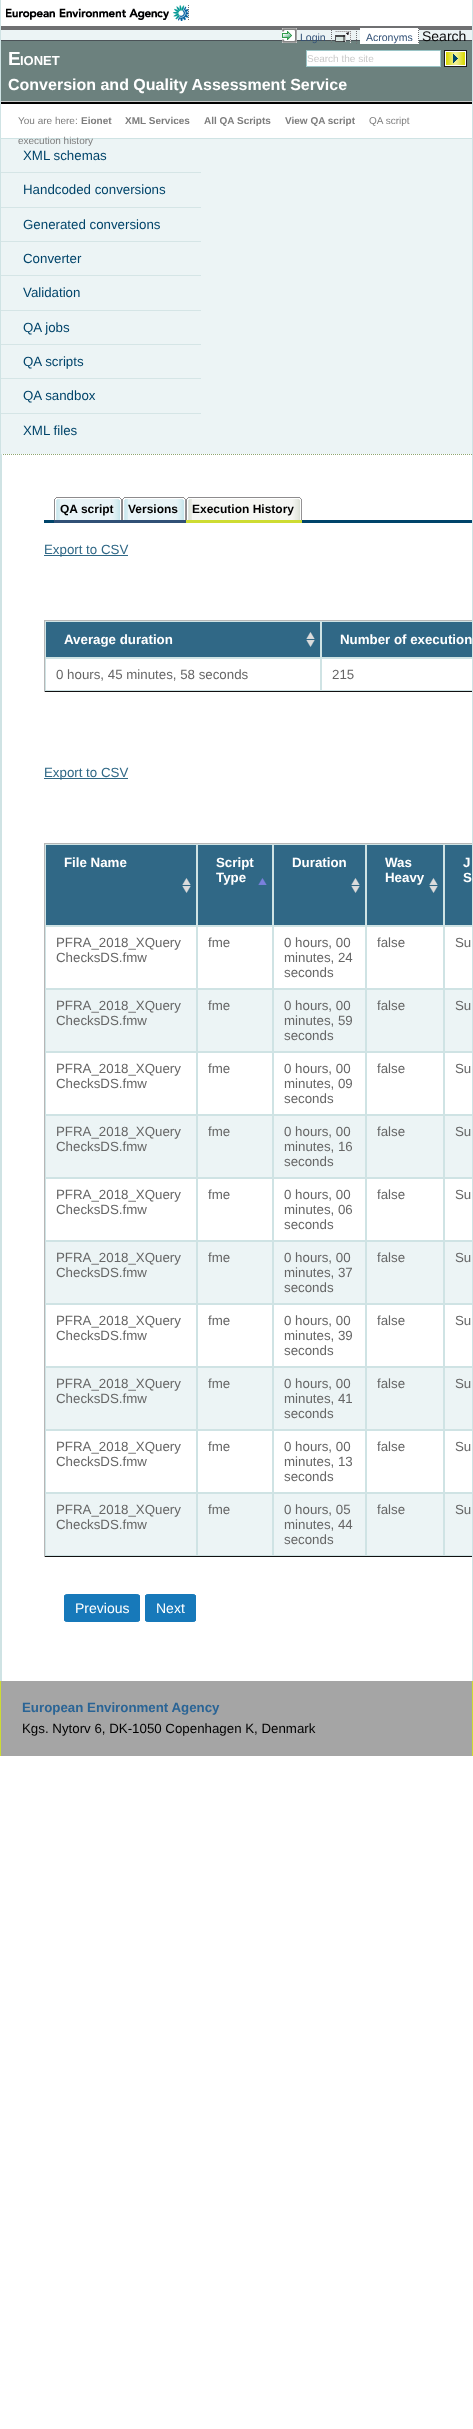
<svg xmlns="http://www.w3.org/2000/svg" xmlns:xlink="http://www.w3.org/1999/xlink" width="473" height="2429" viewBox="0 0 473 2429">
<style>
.cls-1{font:14px Liberation Sans;fill:#0a0a0a}
.cls-2{font:10px Liberation Sans;fill:#cacaca}
.cls-3{font:10.5px Liberation Sans;fill:#315076}
.cls-4{font:bold 19px Liberation Sans;fill:#ffffff}
.cls-5{font:bold 13px Liberation Sans;fill:#ffffff}
.cls-6{font:bold 16px Liberation Sans;fill:#ffffff}
.cls-7{font:10px Liberation Sans;fill:#7d7d7d}
.cls-8{font:bold 10px Liberation Sans;fill:#7d7d7d}
.cls-9{font:13.3px Liberation Sans;fill:#00446a}
.cls-10{font:bold 12px Liberation Sans;fill:#000000}
.cls-11{font:13.3px Liberation Sans;fill:#306886}
.cls-12{font:bold 13.3px Liberation Sans;fill:#ffffff}
.cls-13{font:13.3px Liberation Sans;fill:#666666}
.cls-14{font:14px Liberation Sans;fill:#ffffff}
.cls-15{font:bold 13.3px Liberation Sans;fill:#2a6495}
.cls-16{font:13.3px Liberation Sans;fill:#000000}
</style>
<defs>
<clipPath id="clip1"><rect x="2" y="455" width="470" height="1226"/></clipPath>
</defs>
<rect width="100%" height="100%" fill="#ffffff"/>
<rect fill="#ecf4f5" x="1" y="30" width="471" height="424"/>
<rect fill="#cfe3e4" x="472" y="0" width="1" height="1681"/>
<rect fill="#cfe3e4" x="0" y="0" width="1" height="1681"/>
<rect fill="#6f7072" x="1" y="26" width="471" height="4"/>
<image xlink:href="image0.png" x="6" y="5" width="183" height="16"/>
<path fill="none" stroke="#6f7072" stroke-dasharray="1 1" d="M188.5 5V21"/>
<rect fill="#6c817e" x="1" y="41" width="471" height="60"/>
<rect fill="#4b5257" x="1" y="40" width="471" height="1"/>
<image xlink:href="image1.png" x="282" y="28" width="15" height="15"/>
<image xlink:href="image2.png" x="335" y="31" width="16" height="12"/>
<path fill="none" stroke="#6f7072" stroke-dasharray="1 1" d="M356.5 29V45"/>
<rect fill="#ffffff" stroke="#9ac4c6" x="306.5" y="50.5" width="134" height="16"/>
<image xlink:href="image3.png" x="444" y="50" width="23" height="17"/>
<path fill="none" stroke="#6f7072" stroke-dasharray="1 1" d="M331.5 28V44"/>
<rect fill="#ffffff" x="360" y="28" width="59" height="16"/>
<path fill="none" stroke="#6f7072" stroke-dasharray="1 1" d="M418.5 28V44"/>
<rect fill="#cccccc" x="1" y="101" width="471" height="1"/>
<rect fill="#000000" x="1" y="102" width="471" height="2"/>
<rect fill="#ffffff" x="1" y="104" width="471" height="34"/>
<rect fill="#cfe3e4" x="1" y="138" width="471" height="1"/>
<rect fill="#d5e5e6" x="1" y="172" width="200" height="1"/>
<rect fill="#d5e5e6" x="1" y="207" width="200" height="1"/>
<rect fill="#d5e5e6" x="1" y="241" width="200" height="1"/>
<rect fill="#d5e5e6" x="1" y="275" width="200" height="1"/>
<rect fill="#d5e5e6" x="1" y="310" width="200" height="1"/>
<rect fill="#d5e5e6" x="1" y="344" width="200" height="1"/>
<rect fill="#d5e5e6" x="1" y="378" width="200" height="1"/>
<rect fill="#d5e5e6" x="1" y="413" width="200" height="1"/>
<path fill="none" stroke="#8fa771" stroke-dasharray="1 1" d="M1 454.5H472"/>
<rect fill="#cfe3e4" x="1" y="454" width="1" height="1227"/>
<rect fill="#00446a" x="44" y="520" width="428" height="3"/>
<image xlink:href="image4.png" x="54" y="497" width="6" height="23"/>
<rect fill="#315076" x="54" y="520" width="132" height="3"/>
<image xlink:href="image5.png" x="60" y="497" width="62" height="23"/>
<image xlink:href="image4.png" x="122" y="497" width="6" height="23"/>
<image xlink:href="image6.png" x="128" y="497" width="58" height="23"/>
<image xlink:href="image7.png" x="186" y="497" width="6" height="23"/>
<rect fill="#cedc32" x="186" y="520" width="116" height="3"/>
<image xlink:href="image8.png" x="192" y="497" width="110" height="23"/>
<rect fill="#306886" x="44" y="555" width="84" height="1"/>
<rect fill="#b6b6b6" x="44" y="620" width="428" height="1"/>
<rect fill="#111111" x="44" y="691" width="428" height="1"/>
<rect fill="#b6b6b6" x="44" y="620" width="1" height="72"/>
<image xlink:href="image9.png" x="46" y="622" width="274" height="35"/>
<rect fill="none" stroke="#cfe3e4" x="45.5" y="621.5" width="275" height="36"/>
<rect fill="#306886" x="322" y="622" width="150" height="35"/>
<rect fill="none" stroke="#cfe3e4" x="321.5" y="621.5" width="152" height="36"/>
<rect fill="none" stroke="#cfe3e4" x="45.5" y="658.5" width="275" height="32"/>
<rect fill="none" stroke="#cfe3e4" x="321.5" y="658.5" width="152" height="32"/>
<rect fill="#306886" x="44" y="778" width="84" height="1"/>
<rect fill="#b6b6b6" x="44" y="843" width="428" height="1"/>
<rect fill="#111111" x="44" y="1556" width="428" height="1"/>
<rect fill="#b6b6b6" x="44" y="843" width="1" height="714"/>
<image xlink:href="image10.png" x="46" y="845" width="150" height="80"/>
<rect fill="none" stroke="#cfe3e4" x="45.5" y="844.5" width="151" height="81"/>
<image xlink:href="image11.png" x="198" y="845" width="74" height="80"/>
<rect fill="none" stroke="#cfe3e4" x="197.5" y="844.5" width="75" height="81"/>
<image xlink:href="image12.png" x="274" y="845" width="91" height="80"/>
<rect fill="none" stroke="#cfe3e4" x="273.5" y="844.5" width="92" height="81"/>
<image xlink:href="image13.png" x="367" y="845" width="76" height="80"/>
<rect fill="none" stroke="#cfe3e4" x="366.5" y="844.5" width="77" height="81"/>
<rect fill="#306886" x="445" y="845" width="27" height="80"/>
<rect fill="none" stroke="#cfe3e4" x="444.5" y="844.5" width="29" height="81"/>
<rect fill="none" stroke="#cfe3e4" x="45.5" y="926.5" width="151" height="62"/>
<rect fill="none" stroke="#cfe3e4" x="197.5" y="926.5" width="75" height="62"/>
<rect fill="none" stroke="#cfe3e4" x="273.5" y="926.5" width="92" height="62"/>
<rect fill="none" stroke="#cfe3e4" x="366.5" y="926.5" width="77" height="62"/>
<rect fill="none" stroke="#cfe3e4" x="444.5" y="926.5" width="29" height="62"/>
<rect fill="#ecf4f5" x="46" y="990" width="426" height="61"/>
<rect fill="none" stroke="#cfe3e4" x="45.5" y="989.5" width="151" height="62"/>
<rect fill="none" stroke="#cfe3e4" x="197.5" y="989.5" width="75" height="62"/>
<rect fill="none" stroke="#cfe3e4" x="273.5" y="989.5" width="92" height="62"/>
<rect fill="none" stroke="#cfe3e4" x="366.5" y="989.5" width="77" height="62"/>
<rect fill="none" stroke="#cfe3e4" x="444.5" y="989.5" width="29" height="62"/>
<rect fill="none" stroke="#cfe3e4" x="45.5" y="1052.5" width="151" height="62"/>
<rect fill="none" stroke="#cfe3e4" x="197.5" y="1052.5" width="75" height="62"/>
<rect fill="none" stroke="#cfe3e4" x="273.5" y="1052.5" width="92" height="62"/>
<rect fill="none" stroke="#cfe3e4" x="366.5" y="1052.5" width="77" height="62"/>
<rect fill="none" stroke="#cfe3e4" x="444.5" y="1052.5" width="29" height="62"/>
<rect fill="#ecf4f5" x="46" y="1116" width="426" height="61"/>
<rect fill="none" stroke="#cfe3e4" x="45.5" y="1115.5" width="151" height="62"/>
<rect fill="none" stroke="#cfe3e4" x="197.5" y="1115.5" width="75" height="62"/>
<rect fill="none" stroke="#cfe3e4" x="273.5" y="1115.5" width="92" height="62"/>
<rect fill="none" stroke="#cfe3e4" x="366.5" y="1115.5" width="77" height="62"/>
<rect fill="none" stroke="#cfe3e4" x="444.5" y="1115.5" width="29" height="62"/>
<rect fill="none" stroke="#cfe3e4" x="45.5" y="1178.5" width="151" height="62"/>
<rect fill="none" stroke="#cfe3e4" x="197.5" y="1178.5" width="75" height="62"/>
<rect fill="none" stroke="#cfe3e4" x="273.5" y="1178.5" width="92" height="62"/>
<rect fill="none" stroke="#cfe3e4" x="366.5" y="1178.5" width="77" height="62"/>
<rect fill="none" stroke="#cfe3e4" x="444.5" y="1178.5" width="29" height="62"/>
<rect fill="#ecf4f5" x="46" y="1242" width="426" height="61"/>
<rect fill="none" stroke="#cfe3e4" x="45.5" y="1241.5" width="151" height="62"/>
<rect fill="none" stroke="#cfe3e4" x="197.5" y="1241.5" width="75" height="62"/>
<rect fill="none" stroke="#cfe3e4" x="273.5" y="1241.5" width="92" height="62"/>
<rect fill="none" stroke="#cfe3e4" x="366.5" y="1241.5" width="77" height="62"/>
<rect fill="none" stroke="#cfe3e4" x="444.5" y="1241.5" width="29" height="62"/>
<rect fill="none" stroke="#cfe3e4" x="45.5" y="1304.5" width="151" height="62"/>
<rect fill="none" stroke="#cfe3e4" x="197.5" y="1304.5" width="75" height="62"/>
<rect fill="none" stroke="#cfe3e4" x="273.5" y="1304.5" width="92" height="62"/>
<rect fill="none" stroke="#cfe3e4" x="366.5" y="1304.5" width="77" height="62"/>
<rect fill="none" stroke="#cfe3e4" x="444.5" y="1304.5" width="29" height="62"/>
<rect fill="#ecf4f5" x="46" y="1368" width="426" height="61"/>
<rect fill="none" stroke="#cfe3e4" x="45.5" y="1367.5" width="151" height="62"/>
<rect fill="none" stroke="#cfe3e4" x="197.5" y="1367.5" width="75" height="62"/>
<rect fill="none" stroke="#cfe3e4" x="273.5" y="1367.5" width="92" height="62"/>
<rect fill="none" stroke="#cfe3e4" x="366.5" y="1367.5" width="77" height="62"/>
<rect fill="none" stroke="#cfe3e4" x="444.5" y="1367.5" width="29" height="62"/>
<rect fill="none" stroke="#cfe3e4" x="45.5" y="1430.5" width="151" height="62"/>
<rect fill="none" stroke="#cfe3e4" x="197.5" y="1430.5" width="75" height="62"/>
<rect fill="none" stroke="#cfe3e4" x="273.5" y="1430.5" width="92" height="62"/>
<rect fill="none" stroke="#cfe3e4" x="366.5" y="1430.5" width="77" height="62"/>
<rect fill="none" stroke="#cfe3e4" x="444.5" y="1430.5" width="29" height="62"/>
<rect fill="#ecf4f5" x="46" y="1494" width="426" height="61"/>
<rect fill="none" stroke="#cfe3e4" x="45.5" y="1493.5" width="151" height="62"/>
<rect fill="none" stroke="#cfe3e4" x="197.5" y="1493.5" width="75" height="62"/>
<rect fill="none" stroke="#cfe3e4" x="273.5" y="1493.5" width="92" height="62"/>
<rect fill="none" stroke="#cfe3e4" x="366.5" y="1493.5" width="77" height="62"/>
<rect fill="none" stroke="#cfe3e4" x="444.5" y="1493.5" width="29" height="62"/>
<path fill="#1779ba" d="M69 1594H135C138 1594 140 1595 140 1596V1620C140 1621 138 1622 135 1622H69C66 1622 64 1621 64 1620V1596C64 1595 66 1594 69 1594Z"/>
<path fill="none" stroke="#1779ba" d="M69.5 1594.5H134.5C137.5 1594.5 139.5 1595 139.5 1596V1620C139.5 1621 137.5 1621.5 134.5 1621.5H69.5C66.5 1621.5 64.5 1621 64.5 1620V1596C64.5 1595 66.5 1594.5 69.5 1594.5Z"/>
<path fill="#1779ba" d="M149 1594H192C194 1594 196 1595 196 1596V1620C196 1621 194 1622 192 1622H149C147 1622 145 1621 145 1620V1596C145 1595 147 1594 149 1594Z"/>
<path fill="none" stroke="#1779ba" d="M148.5 1594.5H192.5C194 1594.5 195.5 1595 195.5 1596V1620C195.5 1621 194 1621.5 192.5 1621.5H148.5C147 1621.5 145.5 1621 145.5 1620V1596C145.5 1595 147 1594.5 148.5 1594.5Z"/>
<rect fill="#a5a5a5" x="1" y="1681" width="471" height="75"/>
<rect fill="#cedc32" x="472" y="1681" width="1" height="75"/>
<rect fill="#cedc32" x="0" y="1681" width="1" height="75"/>
<text class="cls-1" x="422" y="41">Search</text>
<text class="cls-2" x="307" y="62">Search the site</text>
<text class="cls-3" x="300" y="41">Login</text>
<text class="cls-3" x="366" y="41">Acronyms</text>
<text class="cls-4" x="8" y="65">E</text>
<text class="cls-5" x="20" y="65">IONET</text>
<text class="cls-6" x="8" y="90">Conversion and Quality Assessment Service</text>
<text class="cls-7" x="18" y="124">You are here:</text>
<text class="cls-8" x="81" y="124">Eionet</text>
<text class="cls-8" x="125" y="124">XML Services</text>
<text class="cls-8" x="204" y="124">All QA Scripts</text>
<text class="cls-8" x="285" y="124">View QA script</text>
<text class="cls-7" x="369" y="124">QA script</text>
<text class="cls-7" x="18" y="144">execution history</text>
<text class="cls-9" x="23" y="160">XML schemas</text>
<text class="cls-9" x="23" y="194">Handcoded conversions</text>
<text class="cls-9" x="23" y="229">Generated conversions</text>
<text class="cls-9" x="23" y="263">Converter</text>
<text class="cls-9" x="23" y="297">Validation</text>
<text class="cls-9" x="23" y="332">QA jobs</text>
<text class="cls-9" x="23" y="366">QA scripts</text>
<text class="cls-9" x="23" y="400">QA sandbox</text>
<text class="cls-9" x="23" y="435">XML files</text>
<text class="cls-10" x="60" y="513">QA script</text>
<text class="cls-10" x="128" y="513">Versions</text>
<text class="cls-10" x="192" y="513">Execution History</text>
<text class="cls-11" x="44" y="554">Export to CSV</text>
<text class="cls-12" x="64" y="644">Average duration</text>
<g clip-path="url(#clip1)">
<text class="cls-12" x="340" y="644">Number of execution</text>
</g>
<text class="cls-13" x="56" y="679">0 hours, 45 minutes, 58 seconds</text>
<text class="cls-13" x="332" y="679">215</text>
<text class="cls-11" x="44" y="777">Export to CSV</text>
<text class="cls-12" x="64" y="867">File Name</text>
<text class="cls-12"><tspan x="216" y="867">Script</tspan><tspan x="216" y="882">Type</tspan></text>
<text class="cls-12" x="292" y="867">Duration</text>
<text class="cls-12"><tspan x="385" y="867">Was</tspan><tspan x="385" y="882">Heavy</tspan></text>
<text class="cls-12"><tspan x="463" y="867">J</tspan><tspan x="463" y="882">S</tspan></text>
<text class="cls-13"><tspan x="56" y="947">PFRA_2018_XQuery</tspan><tspan x="56" y="962">ChecksDS.fmw</tspan></text>
<text class="cls-13" x="208" y="947">fme</text>
<text class="cls-13"><tspan x="284" y="947">0 hours, 00</tspan><tspan x="284" y="962">minutes, 24</tspan><tspan x="284" y="977">seconds</tspan></text>
<text class="cls-13" x="377" y="947">false</text>
<text class="cls-13" x="455" y="947">Su</text>
<text class="cls-13"><tspan x="56" y="1010">PFRA_2018_XQuery</tspan><tspan x="56" y="1025">ChecksDS.fmw</tspan></text>
<text class="cls-13" x="208" y="1010">fme</text>
<text class="cls-13"><tspan x="284" y="1010">0 hours, 00</tspan><tspan x="284" y="1025">minutes, 59</tspan><tspan x="284" y="1040">seconds</tspan></text>
<text class="cls-13" x="377" y="1010">false</text>
<text class="cls-13" x="455" y="1010">Su</text>
<text class="cls-13"><tspan x="56" y="1073">PFRA_2018_XQuery</tspan><tspan x="56" y="1088">ChecksDS.fmw</tspan></text>
<text class="cls-13" x="208" y="1073">fme</text>
<text class="cls-13"><tspan x="284" y="1073">0 hours, 00</tspan><tspan x="284" y="1088">minutes, 09</tspan><tspan x="284" y="1103">seconds</tspan></text>
<text class="cls-13" x="377" y="1073">false</text>
<text class="cls-13" x="455" y="1073">Su</text>
<text class="cls-13"><tspan x="56" y="1136">PFRA_2018_XQuery</tspan><tspan x="56" y="1151">ChecksDS.fmw</tspan></text>
<text class="cls-13" x="208" y="1136">fme</text>
<text class="cls-13"><tspan x="284" y="1136">0 hours, 00</tspan><tspan x="284" y="1151">minutes, 16</tspan><tspan x="284" y="1166">seconds</tspan></text>
<text class="cls-13" x="377" y="1136">false</text>
<text class="cls-13" x="455" y="1136">Su</text>
<text class="cls-13"><tspan x="56" y="1199">PFRA_2018_XQuery</tspan><tspan x="56" y="1214">ChecksDS.fmw</tspan></text>
<text class="cls-13" x="208" y="1199">fme</text>
<text class="cls-13"><tspan x="284" y="1199">0 hours, 00</tspan><tspan x="284" y="1214">minutes, 06</tspan><tspan x="284" y="1229">seconds</tspan></text>
<text class="cls-13" x="377" y="1199">false</text>
<text class="cls-13" x="455" y="1199">Su</text>
<text class="cls-13"><tspan x="56" y="1262">PFRA_2018_XQuery</tspan><tspan x="56" y="1277">ChecksDS.fmw</tspan></text>
<text class="cls-13" x="208" y="1262">fme</text>
<text class="cls-13"><tspan x="284" y="1262">0 hours, 00</tspan><tspan x="284" y="1277">minutes, 37</tspan><tspan x="284" y="1292">seconds</tspan></text>
<text class="cls-13" x="377" y="1262">false</text>
<text class="cls-13" x="455" y="1262">Su</text>
<text class="cls-13"><tspan x="56" y="1325">PFRA_2018_XQuery</tspan><tspan x="56" y="1340">ChecksDS.fmw</tspan></text>
<text class="cls-13" x="208" y="1325">fme</text>
<text class="cls-13"><tspan x="284" y="1325">0 hours, 00</tspan><tspan x="284" y="1340">minutes, 39</tspan><tspan x="284" y="1355">seconds</tspan></text>
<text class="cls-13" x="377" y="1325">false</text>
<text class="cls-13" x="455" y="1325">Su</text>
<text class="cls-13"><tspan x="56" y="1388">PFRA_2018_XQuery</tspan><tspan x="56" y="1403">ChecksDS.fmw</tspan></text>
<text class="cls-13" x="208" y="1388">fme</text>
<text class="cls-13"><tspan x="284" y="1388">0 hours, 00</tspan><tspan x="284" y="1403">minutes, 41</tspan><tspan x="284" y="1418">seconds</tspan></text>
<text class="cls-13" x="377" y="1388">false</text>
<text class="cls-13" x="455" y="1388">Su</text>
<text class="cls-13"><tspan x="56" y="1451">PFRA_2018_XQuery</tspan><tspan x="56" y="1466">ChecksDS.fmw</tspan></text>
<text class="cls-13" x="208" y="1451">fme</text>
<text class="cls-13"><tspan x="284" y="1451">0 hours, 00</tspan><tspan x="284" y="1466">minutes, 13</tspan><tspan x="284" y="1481">seconds</tspan></text>
<text class="cls-13" x="377" y="1451">false</text>
<text class="cls-13" x="455" y="1451">Su</text>
<text class="cls-13"><tspan x="56" y="1514">PFRA_2018_XQuery</tspan><tspan x="56" y="1529">ChecksDS.fmw</tspan></text>
<text class="cls-13" x="208" y="1514">fme</text>
<text class="cls-13"><tspan x="284" y="1514">0 hours, 05</tspan><tspan x="284" y="1529">minutes, 44</tspan><tspan x="284" y="1544">seconds</tspan></text>
<text class="cls-13" x="377" y="1514">false</text>
<text class="cls-13" x="455" y="1514">Su</text>
<text class="cls-14" x="75" y="1613">Previous</text>
<text class="cls-14" x="156" y="1613">Next</text>
<text class="cls-15" x="22" y="1712">European Environment Agency</text>
<text class="cls-16" x="22" y="1733">Kgs. Nytorv 6, DK-1050 Copenhagen K, Denmark</text>
</svg>
